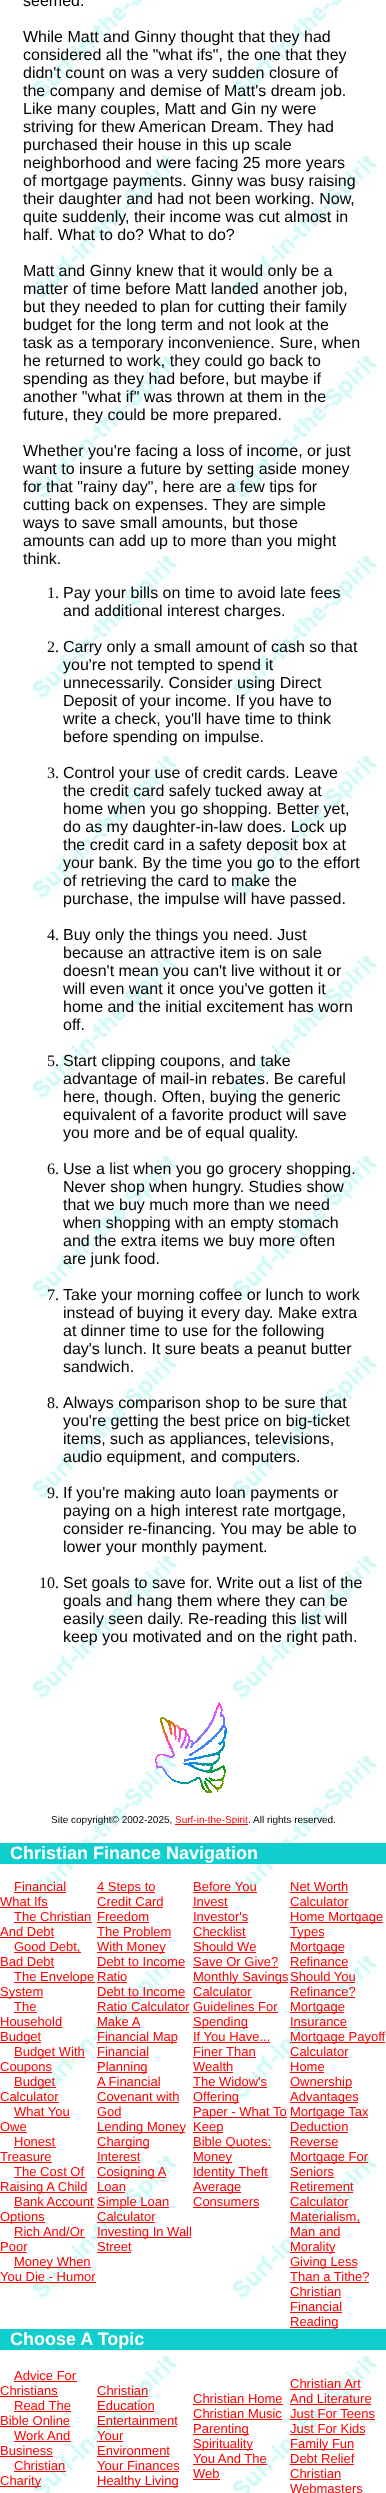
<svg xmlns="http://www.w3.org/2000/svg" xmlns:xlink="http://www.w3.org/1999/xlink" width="386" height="2493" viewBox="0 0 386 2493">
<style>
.cls-1{font:16px Liberation Sans;fill:#000000}
.cls-2{font:16px Liberation Serif;fill:#000000}
.cls-3{font:10px Liberation Sans;fill:#000000}
.cls-4{font:10px Liberation Sans;fill:#ff0000}
.cls-5{font:bold 18px Liberation Sans;fill:#ffffff}
.cls-6{font:13px Liberation Sans;fill:#ff0000}
</style>
<rect width="100%" height="100%" fill="#ffffff"/>
<image xlink:href="image0.png" x="31" y="0" width="346" height="2493"/>
<image xlink:href="image1.png" x="155" y="1702" width="72" height="91"/>
<rect fill="#ff0000" x="175" y="1824" width="73" height="1"/>
<rect fill="#10cece" x="0" y="1843" width="386" height="21"/>
<rect fill="#ff0000" x="14" y="1892" width="52" height="1"/>
<rect fill="#ff0000" x="0" y="1907" width="48" height="1"/>
<rect fill="#ff0000" x="14" y="1922" width="78" height="1"/>
<rect fill="#ff0000" x="0" y="1937" width="54" height="1"/>
<rect fill="#ff0000" x="14" y="1952" width="67" height="1"/>
<rect fill="#ff0000" x="0" y="1967" width="54" height="1"/>
<rect fill="#ff0000" x="14" y="1982" width="81" height="1"/>
<rect fill="#ff0000" x="0" y="1997" width="43" height="1"/>
<rect fill="#ff0000" x="14" y="2012" width="23" height="1"/>
<rect fill="#ff0000" x="0" y="2027" width="62" height="1"/>
<rect fill="#ff0000" x="0" y="2042" width="41" height="1"/>
<rect fill="#ff0000" x="14" y="2057" width="71" height="1"/>
<rect fill="#ff0000" x="0" y="2072" width="52" height="1"/>
<rect fill="#ff0000" x="14" y="2087" width="42" height="1"/>
<rect fill="#ff0000" x="0" y="2102" width="59" height="1"/>
<rect fill="#ff0000" x="14" y="2117" width="56" height="1"/>
<rect fill="#ff0000" x="0" y="2132" width="27" height="1"/>
<rect fill="#ff0000" x="14" y="2147" width="42" height="1"/>
<rect fill="#ff0000" x="0" y="2162" width="52" height="1"/>
<rect fill="#ff0000" x="14" y="2177" width="71" height="1"/>
<rect fill="#ff0000" x="0" y="2192" width="87" height="1"/>
<rect fill="#ff0000" x="14" y="2207" width="80" height="1"/>
<rect fill="#ff0000" x="0" y="2222" width="45" height="1"/>
<rect fill="#ff0000" x="14" y="2237" width="71" height="1"/>
<rect fill="#ff0000" x="0" y="2252" width="27" height="1"/>
<rect fill="#ff0000" x="14" y="2267" width="77" height="1"/>
<rect fill="#ff0000" x="0" y="2282" width="96" height="1"/>
<rect fill="#ff0000" x="97" y="1892" width="58" height="1"/>
<rect fill="#ff0000" x="97" y="1907" width="66" height="1"/>
<rect fill="#ff0000" x="97" y="1922" width="52" height="1"/>
<rect fill="#ff0000" x="97" y="1937" width="74" height="1"/>
<rect fill="#ff0000" x="97" y="1952" width="68" height="1"/>
<rect fill="#ff0000" x="97" y="1967" width="88" height="1"/>
<rect fill="#ff0000" x="97" y="1982" width="30" height="1"/>
<rect fill="#ff0000" x="97" y="1997" width="88" height="1"/>
<rect fill="#ff0000" x="97" y="2012" width="92" height="1"/>
<rect fill="#ff0000" x="97" y="2027" width="43" height="1"/>
<rect fill="#ff0000" x="97" y="2042" width="80" height="1"/>
<rect fill="#ff0000" x="97" y="2057" width="52" height="1"/>
<rect fill="#ff0000" x="97" y="2072" width="50" height="1"/>
<rect fill="#ff0000" x="97" y="2087" width="63" height="1"/>
<rect fill="#ff0000" x="97" y="2102" width="82" height="1"/>
<rect fill="#ff0000" x="97" y="2117" width="24" height="1"/>
<rect fill="#ff0000" x="97" y="2132" width="88" height="1"/>
<rect fill="#ff0000" x="97" y="2147" width="52" height="1"/>
<rect fill="#ff0000" x="97" y="2162" width="43" height="1"/>
<rect fill="#ff0000" x="97" y="2177" width="69" height="1"/>
<rect fill="#ff0000" x="97" y="2192" width="28" height="1"/>
<rect fill="#ff0000" x="97" y="2207" width="72" height="1"/>
<rect fill="#ff0000" x="97" y="2222" width="58" height="1"/>
<rect fill="#ff0000" x="97" y="2237" width="94" height="1"/>
<rect fill="#ff0000" x="97" y="2252" width="34" height="1"/>
<rect fill="#ff0000" x="193" y="1892" width="64" height="1"/>
<rect fill="#ff0000" x="193" y="1907" width="35" height="1"/>
<rect fill="#ff0000" x="193" y="1922" width="55" height="1"/>
<rect fill="#ff0000" x="193" y="1937" width="53" height="1"/>
<rect fill="#ff0000" x="193" y="1952" width="63" height="1"/>
<rect fill="#ff0000" x="193" y="1967" width="85" height="1"/>
<rect fill="#ff0000" x="193" y="1982" width="95" height="1"/>
<rect fill="#ff0000" x="193" y="1997" width="59" height="1"/>
<rect fill="#ff0000" x="193" y="2012" width="85" height="1"/>
<rect fill="#ff0000" x="193" y="2027" width="55" height="1"/>
<rect fill="#ff0000" x="193" y="2042" width="77" height="1"/>
<rect fill="#ff0000" x="193" y="2057" width="63" height="1"/>
<rect fill="#ff0000" x="193" y="2072" width="40" height="1"/>
<rect fill="#ff0000" x="193" y="2087" width="74" height="1"/>
<rect fill="#ff0000" x="193" y="2102" width="46" height="1"/>
<rect fill="#ff0000" x="193" y="2117" width="94" height="1"/>
<rect fill="#ff0000" x="193" y="2132" width="30" height="1"/>
<rect fill="#ff0000" x="193" y="2147" width="78" height="1"/>
<rect fill="#ff0000" x="193" y="2162" width="39" height="1"/>
<rect fill="#ff0000" x="193" y="2177" width="75" height="1"/>
<rect fill="#ff0000" x="193" y="2192" width="48" height="1"/>
<rect fill="#ff0000" x="193" y="2207" width="66" height="1"/>
<rect fill="#ff0000" x="290" y="1892" width="58" height="1"/>
<rect fill="#ff0000" x="290" y="1907" width="58" height="1"/>
<rect fill="#ff0000" x="290" y="1922" width="93" height="1"/>
<rect fill="#ff0000" x="290" y="1937" width="34" height="1"/>
<rect fill="#ff0000" x="290" y="1952" width="54" height="1"/>
<rect fill="#ff0000" x="290" y="1967" width="58" height="1"/>
<rect fill="#ff0000" x="290" y="1982" width="65" height="1"/>
<rect fill="#ff0000" x="290" y="1997" width="65" height="1"/>
<rect fill="#ff0000" x="290" y="2012" width="54" height="1"/>
<rect fill="#ff0000" x="290" y="2027" width="57" height="1"/>
<rect fill="#ff0000" x="290" y="2042" width="95" height="1"/>
<rect fill="#ff0000" x="290" y="2057" width="58" height="1"/>
<rect fill="#ff0000" x="290" y="2072" width="34" height="1"/>
<rect fill="#ff0000" x="290" y="2087" width="62" height="1"/>
<rect fill="#ff0000" x="290" y="2102" width="68" height="1"/>
<rect fill="#ff0000" x="290" y="2117" width="78" height="1"/>
<rect fill="#ff0000" x="290" y="2132" width="58" height="1"/>
<rect fill="#ff0000" x="290" y="2147" width="48" height="1"/>
<rect fill="#ff0000" x="290" y="2162" width="78" height="1"/>
<rect fill="#ff0000" x="290" y="2177" width="44" height="1"/>
<rect fill="#ff0000" x="290" y="2192" width="63" height="1"/>
<rect fill="#ff0000" x="290" y="2207" width="58" height="1"/>
<rect fill="#ff0000" x="290" y="2222" width="70" height="1"/>
<rect fill="#ff0000" x="290" y="2237" width="50" height="1"/>
<rect fill="#ff0000" x="290" y="2252" width="45" height="1"/>
<rect fill="#ff0000" x="290" y="2267" width="67" height="1"/>
<rect fill="#ff0000" x="290" y="2282" width="79" height="1"/>
<rect fill="#ff0000" x="290" y="2297" width="51" height="1"/>
<rect fill="#ff0000" x="290" y="2312" width="52" height="1"/>
<rect fill="#ff0000" x="290" y="2327" width="48" height="1"/>
<rect fill="#10cece" x="0" y="2329" width="386" height="21"/>
<rect fill="#ff0000" x="14" y="2381" width="63" height="1"/>
<rect fill="#ff0000" x="0" y="2396" width="58" height="1"/>
<rect fill="#ff0000" x="14" y="2411" width="57" height="1"/>
<rect fill="#ff0000" x="0" y="2426" width="70" height="1"/>
<rect fill="#ff0000" x="14" y="2441" width="57" height="1"/>
<rect fill="#ff0000" x="0" y="2456" width="53" height="1"/>
<rect fill="#ff0000" x="14" y="2471" width="52" height="1"/>
<rect fill="#ff0000" x="0" y="2486" width="41" height="1"/>
<rect fill="#ff0000" x="97" y="2396" width="51" height="1"/>
<rect fill="#ff0000" x="97" y="2411" width="57" height="1"/>
<rect fill="#ff0000" x="97" y="2426" width="80" height="1"/>
<rect fill="#ff0000" x="97" y="2441" width="26" height="1"/>
<rect fill="#ff0000" x="97" y="2456" width="72" height="1"/>
<rect fill="#ff0000" x="97" y="2471" width="82" height="1"/>
<rect fill="#ff0000" x="97" y="2486" width="81" height="1"/>
<rect fill="#ff0000" x="193" y="2404" width="90" height="1"/>
<rect fill="#ff0000" x="193" y="2419" width="89" height="1"/>
<rect fill="#ff0000" x="193" y="2434" width="56" height="1"/>
<rect fill="#ff0000" x="193" y="2449" width="60" height="1"/>
<rect fill="#ff0000" x="193" y="2464" width="74" height="1"/>
<rect fill="#ff0000" x="193" y="2479" width="27" height="1"/>
<rect fill="#ff0000" x="290" y="2389" width="70" height="1"/>
<rect fill="#ff0000" x="290" y="2404" width="81" height="1"/>
<rect fill="#ff0000" x="290" y="2419" width="85" height="1"/>
<rect fill="#ff0000" x="290" y="2434" width="75" height="1"/>
<rect fill="#ff0000" x="290" y="2449" width="64" height="1"/>
<rect fill="#ff0000" x="290" y="2464" width="64" height="1"/>
<rect fill="#ff0000" x="290" y="2479" width="51" height="1"/>
<text class="cls-1" x="23" y="6">seemed.</text>
<text class="cls-1"><tspan x="23" y="42">While Matt and Ginny thought that they had</tspan><tspan x="23" y="60">considered all the "what ifs", the one that they</tspan><tspan x="23" y="78">didn't count on was a very sudden closure of</tspan><tspan x="23" y="96">the company and demise of Matt's dream job.</tspan><tspan x="23" y="114">Like many couples, Matt and Gin ny were</tspan><tspan x="23" y="132">striving for thew American Dream. They had</tspan><tspan x="23" y="150">purchased their house in this up scale</tspan><tspan x="23" y="168">neighborhood and were facing 25 more years</tspan><tspan x="23" y="186">of mortgage payments. Ginny was busy raising</tspan><tspan x="23" y="204">their daughter and had not been working. Now,</tspan><tspan x="23" y="222">quite suddenly, their income was cut almost in</tspan><tspan x="23" y="240">half. What to do? What to do?</tspan></text>
<text class="cls-1"><tspan x="23" y="276">Matt and Ginny knew that it would only be a</tspan><tspan x="23" y="294">matter of time before Matt landed another job,</tspan><tspan x="23" y="312">but they needed to plan for cutting their family</tspan><tspan x="23" y="330">budget for the long term and not look at the</tspan><tspan x="23" y="348">task as a temporary inconvenience. Sure, when</tspan><tspan x="23" y="366">he returned to work, they could go back to</tspan><tspan x="23" y="384">spending as they had before, but maybe if</tspan><tspan x="23" y="402">another "what if" was thrown at them in the</tspan><tspan x="23" y="420">future, they could be more prepared.</tspan></text>
<text class="cls-1"><tspan x="23" y="456">Whether you're facing a loss of income, or just</tspan><tspan x="23" y="474">want to insure a future by setting aside money</tspan><tspan x="23" y="492">for that "rainy day", here are a few tips for</tspan><tspan x="23" y="510">cutting back on expenses. They are simple</tspan><tspan x="23" y="528">ways to save small amounts, but those</tspan><tspan x="23" y="546">amounts can add up to more than you might</tspan><tspan x="23" y="564">think.</tspan></text>
<text class="cls-2" x="47" y="598">1.</text>
<text class="cls-1"><tspan x="63" y="598">Pay your bills on time to avoid late fees</tspan><tspan x="63" y="616">and additional interest charges.</tspan></text>
<text class="cls-2" x="47" y="652">2.</text>
<text class="cls-1"><tspan x="63" y="652">Carry only a small amount of cash so that</tspan><tspan x="63" y="670">you're not tempted to spend it</tspan><tspan x="63" y="688">unnecessarily. Consider using Direct</tspan><tspan x="63" y="706">Deposit of your income. If you have to</tspan><tspan x="63" y="724">write a check, you'll have time to think</tspan><tspan x="63" y="742">before spending on impulse.</tspan></text>
<text class="cls-2" x="47" y="778">3.</text>
<text class="cls-1"><tspan x="63" y="778">Control your use of credit cards. Leave</tspan><tspan x="63" y="796">the credit card safely tucked away at</tspan><tspan x="63" y="814">home when you go shopping. Better yet,</tspan><tspan x="63" y="832">do as my daughter-in-law does. Lock up</tspan><tspan x="63" y="850">the credit card in a safety deposit box at</tspan><tspan x="63" y="868">your bank. By the time you go to the effort</tspan><tspan x="63" y="886">of retrieving the card to make the</tspan><tspan x="63" y="904">purchase, the impulse will have passed.</tspan></text>
<text class="cls-2" x="47" y="940">4.</text>
<text class="cls-1"><tspan x="63" y="940">Buy only the things you need. Just</tspan><tspan x="63" y="958">because an attractive item is on sale</tspan><tspan x="63" y="976">doesn't mean you can't live without it or</tspan><tspan x="63" y="994">will even want it once you've gotten it</tspan><tspan x="63" y="1012">home and the initial excitement has worn</tspan><tspan x="63" y="1030">off.</tspan></text>
<text class="cls-2" x="47" y="1066">5.</text>
<text class="cls-1"><tspan x="63" y="1066">Start clipping coupons, and take</tspan><tspan x="63" y="1084">advantage of mail-in rebates. Be careful</tspan><tspan x="63" y="1102">here, though. Often, buying the generic</tspan><tspan x="63" y="1120">equivalent of a favorite product will save</tspan><tspan x="63" y="1138">you more and be of equal quality.</tspan></text>
<text class="cls-2" x="47" y="1174">6.</text>
<text class="cls-1"><tspan x="63" y="1174">Use a list when you go grocery shopping.</tspan><tspan x="63" y="1192">Never shop when hungry. Studies show</tspan><tspan x="63" y="1210">that we buy much more than we need</tspan><tspan x="63" y="1228">when shopping with an empty stomach</tspan><tspan x="63" y="1246">and the extra items we buy more often</tspan><tspan x="63" y="1264">are junk food.</tspan></text>
<text class="cls-2" x="47" y="1300">7.</text>
<text class="cls-1"><tspan x="63" y="1300">Take your morning coffee or lunch to work</tspan><tspan x="63" y="1318">instead of buying it every day. Make extra</tspan><tspan x="63" y="1336">at dinner time to use for the following</tspan><tspan x="63" y="1354">day's lunch. It sure beats a peanut butter</tspan><tspan x="63" y="1372">sandwich.</tspan></text>
<text class="cls-2" x="47" y="1408">8.</text>
<text class="cls-1"><tspan x="63" y="1408">Always comparison shop to be sure that</tspan><tspan x="63" y="1426">you're getting the best price on big-ticket</tspan><tspan x="63" y="1444">items, such as appliances, televisions,</tspan><tspan x="63" y="1462">audio equipment, and computers.</tspan></text>
<text class="cls-2" x="47" y="1498">9.</text>
<text class="cls-1"><tspan x="63" y="1498">If you're making auto loan payments or</tspan><tspan x="63" y="1516">paying on a high interest rate mortgage,</tspan><tspan x="63" y="1534">consider re-financing. You may be able to</tspan><tspan x="63" y="1552">lower your monthly payment.</tspan></text>
<text class="cls-2" x="39" y="1588">10.</text>
<text class="cls-1"><tspan x="63" y="1588">Set goals to save for. Write out a list of the</tspan><tspan x="63" y="1606">goals and hang them where they can be</tspan><tspan x="63" y="1624">easily seen daily. Re-reading this list will</tspan><tspan x="63" y="1642">keep you motivated and on the right path.</tspan></text>
<text class="cls-3" x="51" y="1823">Site copyright© 2002-2025,</text>
<text class="cls-4" x="175" y="1823">Surf-in-the-Spirit</text>
<text class="cls-3" x="248" y="1823">. All rights reserved.</text>
<text class="cls-5" x="10" y="1859">Christian Finance Navigation</text>
<text class="cls-6" x="14" y="1891">Financial</text>
<text class="cls-6" x="0" y="1906">What Ifs</text>
<text class="cls-6" x="14" y="1921">The Christian</text>
<text class="cls-6" x="0" y="1936">And Debt</text>
<text class="cls-6" x="14" y="1951">Good Debt,</text>
<text class="cls-6" x="0" y="1966">Bad Debt</text>
<text class="cls-6" x="14" y="1981">The Envelope</text>
<text class="cls-6" x="0" y="1996">System</text>
<text class="cls-6" x="14" y="2011">The</text>
<text class="cls-6"><tspan x="0" y="2026">Household</tspan><tspan x="0" y="2041">Budget</tspan></text>
<text class="cls-6" x="14" y="2056">Budget With</text>
<text class="cls-6" x="0" y="2071">Coupons</text>
<text class="cls-6" x="14" y="2086">Budget</text>
<text class="cls-6" x="0" y="2101">Calculator</text>
<text class="cls-6" x="14" y="2116">What You</text>
<text class="cls-6" x="0" y="2131">Owe</text>
<text class="cls-6" x="14" y="2146">Honest</text>
<text class="cls-6" x="0" y="2161">Treasure</text>
<text class="cls-6" x="14" y="2176">The Cost Of</text>
<text class="cls-6" x="0" y="2191">Raising A Child</text>
<text class="cls-6" x="14" y="2206">Bank Account</text>
<text class="cls-6" x="0" y="2221">Options</text>
<text class="cls-6" x="14" y="2236">Rich And/Or</text>
<text class="cls-6" x="0" y="2251">Poor</text>
<text class="cls-6" x="14" y="2266">Money When</text>
<text class="cls-6" x="0" y="2281">You Die - Humor</text>
<text class="cls-6"><tspan x="97" y="1891">4 Steps to</tspan><tspan x="97" y="1906">Credit Card</tspan><tspan x="97" y="1921">Freedom</tspan><tspan x="97" y="1936">The Problem</tspan><tspan x="97" y="1951">With Money</tspan><tspan x="97" y="1966">Debt to Income</tspan><tspan x="97" y="1981">Ratio</tspan><tspan x="97" y="1996">Debt to Income</tspan><tspan x="97" y="2011">Ratio Calculator</tspan><tspan x="97" y="2026">Make A</tspan><tspan x="97" y="2041">Financial Map</tspan><tspan x="97" y="2056">Financial</tspan><tspan x="97" y="2071">Planning</tspan><tspan x="97" y="2086">A Financial</tspan><tspan x="97" y="2101">Covenant with</tspan><tspan x="97" y="2116">God</tspan><tspan x="97" y="2131">Lending Money</tspan><tspan x="97" y="2146">Charging</tspan><tspan x="97" y="2161">Interest</tspan><tspan x="97" y="2176">Cosigning A</tspan><tspan x="97" y="2191">Loan</tspan><tspan x="97" y="2206">Simple Loan</tspan><tspan x="97" y="2221">Calculator</tspan><tspan x="97" y="2236">Investing In Wall</tspan><tspan x="97" y="2251">Street</tspan></text>
<text class="cls-6"><tspan x="193" y="1891">Before You</tspan><tspan x="193" y="1906">Invest</tspan><tspan x="193" y="1921">Investor's</tspan><tspan x="193" y="1936">Checklist</tspan><tspan x="193" y="1951">Should We</tspan><tspan x="193" y="1966">Save Or Give?</tspan><tspan x="193" y="1981">Monthly Savings</tspan><tspan x="193" y="1996">Calculator</tspan><tspan x="193" y="2011">Guidelines For</tspan><tspan x="193" y="2026">Spending</tspan><tspan x="193" y="2041">If You Have...</tspan><tspan x="193" y="2056">Finer Than</tspan><tspan x="193" y="2071">Wealth</tspan><tspan x="193" y="2086">The Widow's</tspan><tspan x="193" y="2101">Offering</tspan><tspan x="193" y="2116">Paper - What To</tspan><tspan x="193" y="2131">Keep</tspan><tspan x="193" y="2146">Bible Quotes:</tspan><tspan x="193" y="2161">Money</tspan><tspan x="193" y="2176">Identity Theft</tspan><tspan x="193" y="2191">Average</tspan><tspan x="193" y="2206">Consumers</tspan></text>
<text class="cls-6"><tspan x="290" y="1891">Net Worth</tspan><tspan x="290" y="1906">Calculator</tspan><tspan x="290" y="1921">Home Mortgage</tspan><tspan x="290" y="1936">Types</tspan><tspan x="290" y="1951">Mortgage</tspan><tspan x="290" y="1966">Refinance</tspan><tspan x="290" y="1981">Should You</tspan><tspan x="290" y="1996">Refinance?</tspan><tspan x="290" y="2011">Mortgage</tspan><tspan x="290" y="2026">Insurance</tspan><tspan x="290" y="2041">Mortgage Payoff</tspan><tspan x="290" y="2056">Calculator</tspan><tspan x="290" y="2071">Home</tspan><tspan x="290" y="2086">Ownership</tspan><tspan x="290" y="2101">Advantages</tspan><tspan x="290" y="2116">Mortgage Tax</tspan><tspan x="290" y="2131">Deduction</tspan><tspan x="290" y="2146">Reverse</tspan><tspan x="290" y="2161">Mortgage For</tspan><tspan x="290" y="2176">Seniors</tspan><tspan x="290" y="2191">Retirement</tspan><tspan x="290" y="2206">Calculator</tspan><tspan x="290" y="2221">Materialism,</tspan><tspan x="290" y="2236">Man and</tspan><tspan x="290" y="2251">Morality</tspan><tspan x="290" y="2266">Giving Less</tspan><tspan x="290" y="2281">Than a Tithe?</tspan><tspan x="290" y="2296">Christian</tspan><tspan x="290" y="2311">Financial</tspan><tspan x="290" y="2326">Reading</tspan></text>
<text class="cls-5" x="10" y="2345">Choose A Topic</text>
<text class="cls-6" x="14" y="2380">Advice For</text>
<text class="cls-6" x="0" y="2395">Christians</text>
<text class="cls-6" x="14" y="2410">Read The</text>
<text class="cls-6" x="0" y="2425">Bible Online</text>
<text class="cls-6" x="14" y="2440">Work And</text>
<text class="cls-6" x="0" y="2455">Business</text>
<text class="cls-6" x="14" y="2470">Christian</text>
<text class="cls-6" x="0" y="2485">Charity</text>
<text class="cls-6"><tspan x="97" y="2395">Christian</tspan><tspan x="97" y="2410">Education</tspan><tspan x="97" y="2425">Entertainment</tspan><tspan x="97" y="2440">Your</tspan><tspan x="97" y="2455">Environment</tspan><tspan x="97" y="2470">Your Finances</tspan><tspan x="97" y="2485">Healthy Living</tspan></text>
<text class="cls-6"><tspan x="193" y="2403">Christian Home</tspan><tspan x="193" y="2418">Christian Music</tspan><tspan x="193" y="2433">Parenting</tspan><tspan x="193" y="2448">Spirituality</tspan><tspan x="193" y="2463">You And The</tspan><tspan x="193" y="2478">Web</tspan></text>
<text class="cls-6"><tspan x="290" y="2388">Christian Art</tspan><tspan x="290" y="2403">And Literature</tspan><tspan x="290" y="2418">Just For Teens</tspan><tspan x="290" y="2433">Just For Kids</tspan><tspan x="290" y="2448">Family Fun</tspan><tspan x="290" y="2463">Debt Relief</tspan><tspan x="290" y="2478">Christian</tspan><tspan x="290" y="2493">Webmasters</tspan></text>
</svg>
